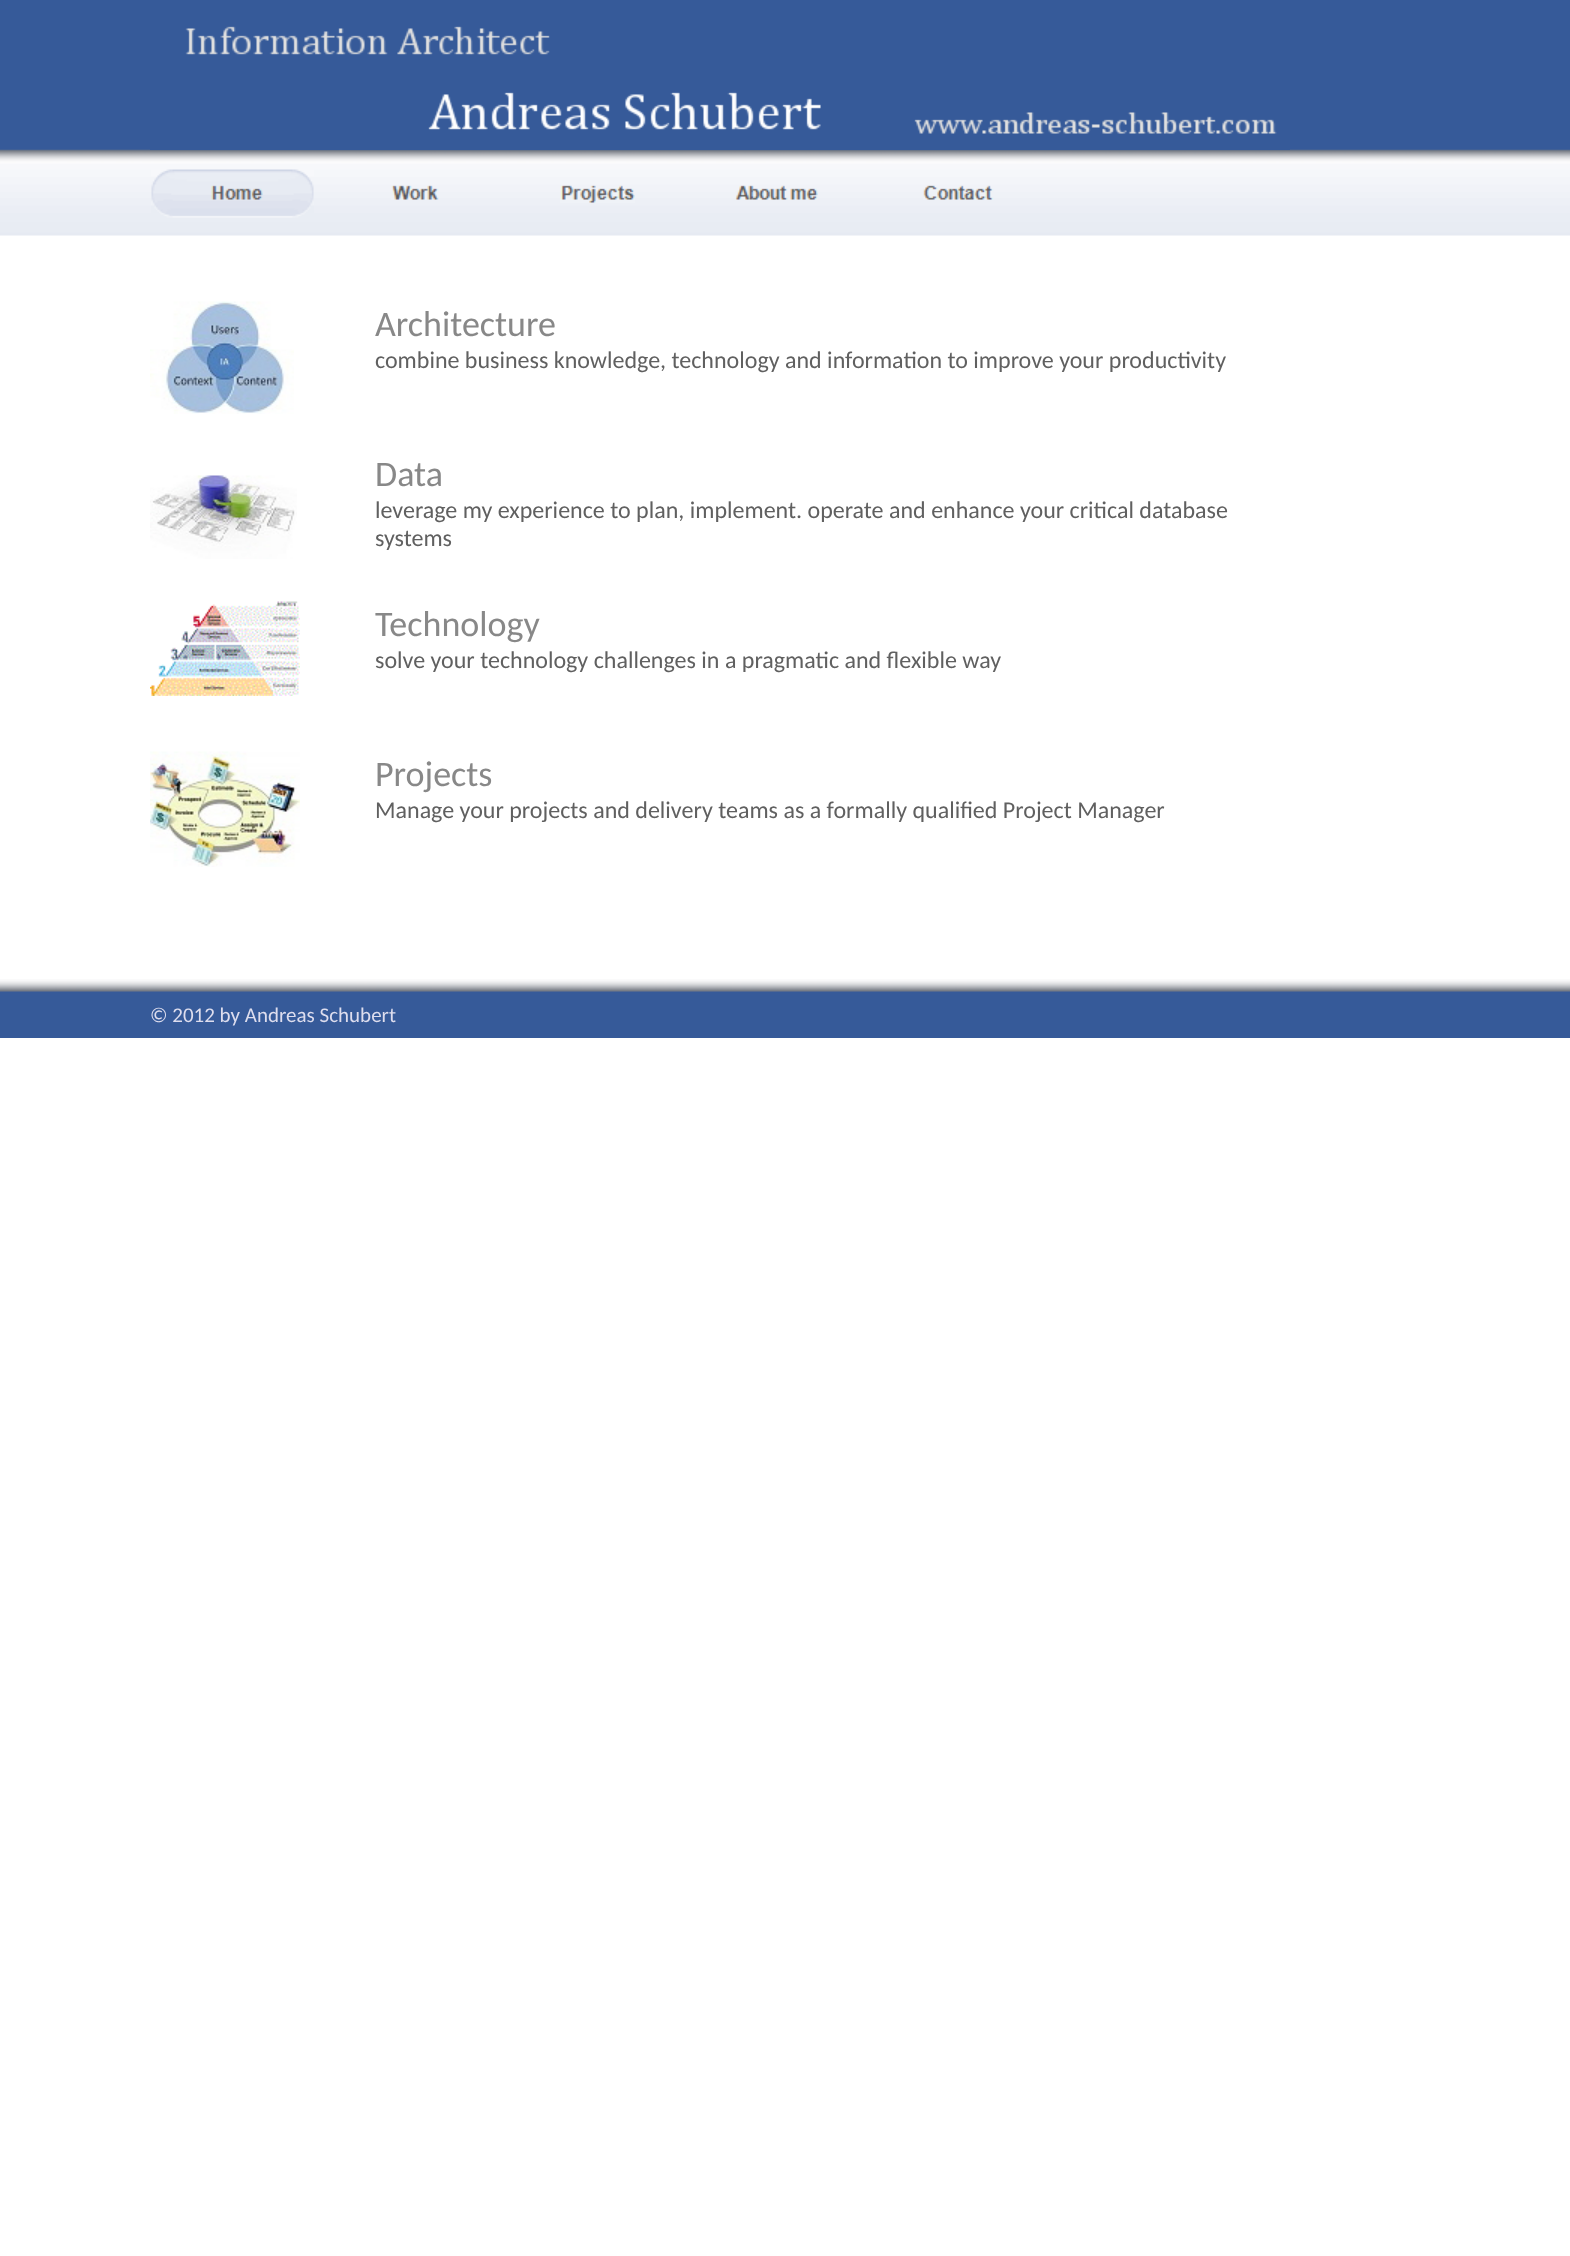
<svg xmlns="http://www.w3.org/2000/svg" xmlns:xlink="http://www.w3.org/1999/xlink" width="1570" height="2256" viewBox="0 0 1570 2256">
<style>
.cls-1{font:36px Carlito;fill:#888888}
.cls-2{font:24px Carlito;fill:#606060}
.cls-3{font:21px Carlito;fill:#ddddee}
</style>
<rect width="100%" height="100%" fill="#ffffff"/>
<image xlink:href="image0.png" x="0" y="0" width="1570" height="236"/>
<image xlink:href="image1.png" x="150" y="26" width="1140" height="124"/>
<image xlink:href="image2.png" x="151" y="169" width="163" height="49"/>
<image xlink:href="image3.png" x="391" y="185" width="48" height="15"/>
<image xlink:href="image4.png" x="560" y="185" width="75" height="18"/>
<image xlink:href="image5.png" x="735" y="185" width="83" height="15"/>
<image xlink:href="image6.png" x="923" y="185" width="71" height="15"/>
<image xlink:href="image7.png" x="150" y="301" width="144" height="113"/>
<image xlink:href="image8.png" x="150" y="475" width="147" height="84"/>
<image xlink:href="image9.png" x="150" y="601" width="150" height="95"/>
<image xlink:href="image10.png" x="150" y="751" width="150" height="116"/>
<image xlink:href="image11.png" x="0" y="979" width="1570" height="59"/>
<text class="cls-1" x="375" y="336">Architecture</text>
<text class="cls-2" x="375" y="368">combine business knowledge, technology and information to improve your productivity</text>
<text class="cls-1" x="375" y="486">Data</text>
<text class="cls-2"><tspan x="375" y="518">leverage my experience to plan, implement. operate and enhance your critical database</tspan><tspan x="375" y="546">systems</tspan></text>
<text class="cls-1" x="375" y="636">Technology</text>
<text class="cls-2" x="375" y="668">solve your technology challenges in a pragmatic and flexible way</text>
<text class="cls-1" x="375" y="786">Projects</text>
<text class="cls-2" x="375" y="818">Manage your projects and delivery teams as a formally qualified Project Manager</text>
<text class="cls-3" x="150" y="1022">© 2012 by Andreas Schubert</text>
</svg>
